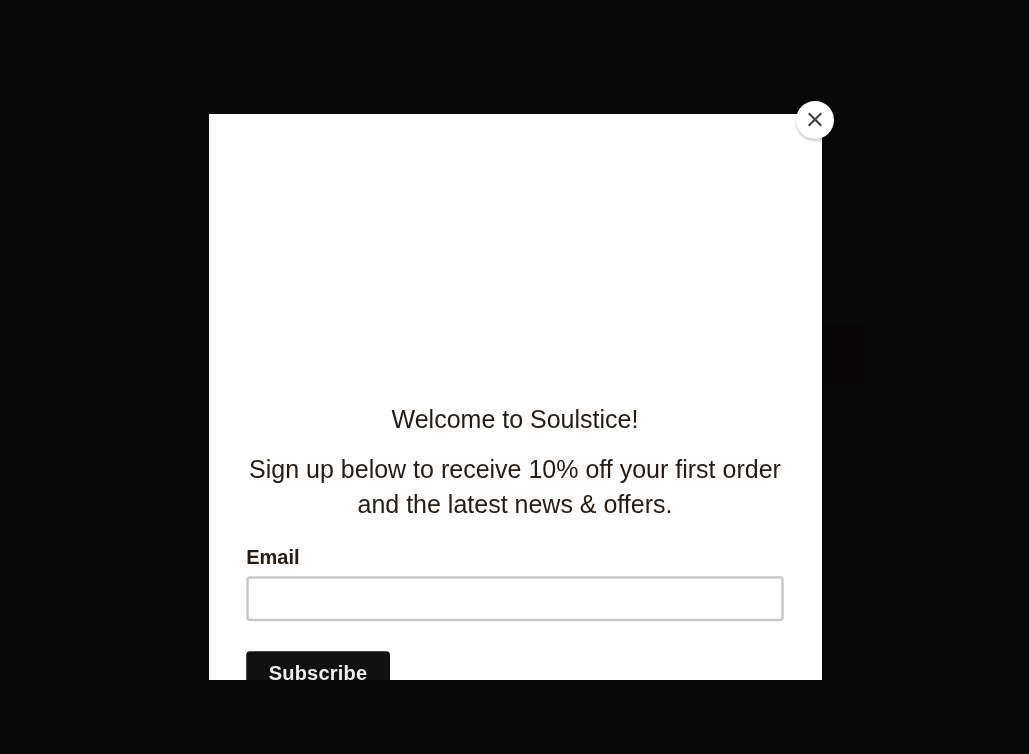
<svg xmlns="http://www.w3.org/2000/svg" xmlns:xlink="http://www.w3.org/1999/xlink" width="1029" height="754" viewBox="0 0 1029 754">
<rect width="100%" height="100%" fill="#080808"/>
<path fill="#070505" d="M721 325H862.5C864 325 865 326 865 327.5V380.5C865 382 864 383 862.5 383H721Z"/>
<image xlink:href="image0.png" x="209" y="114" width="613" height="566"/>
<rect fill="#000000" fill-opacity="0.2" filter="blur(1px)" x="796" y="104" width="38" height="37" rx="18.5"/>
<circle fill="#ffffff" cx="815" cy="120" r="19"/>
<path fill="#414141" d="M820.5 112.5L822 114L809.5 126.5L808 125Z"/>
<path fill="#414141" d="M808 114L809.5 112.5L822 125L820.5 126.5Z"/>
</svg>
